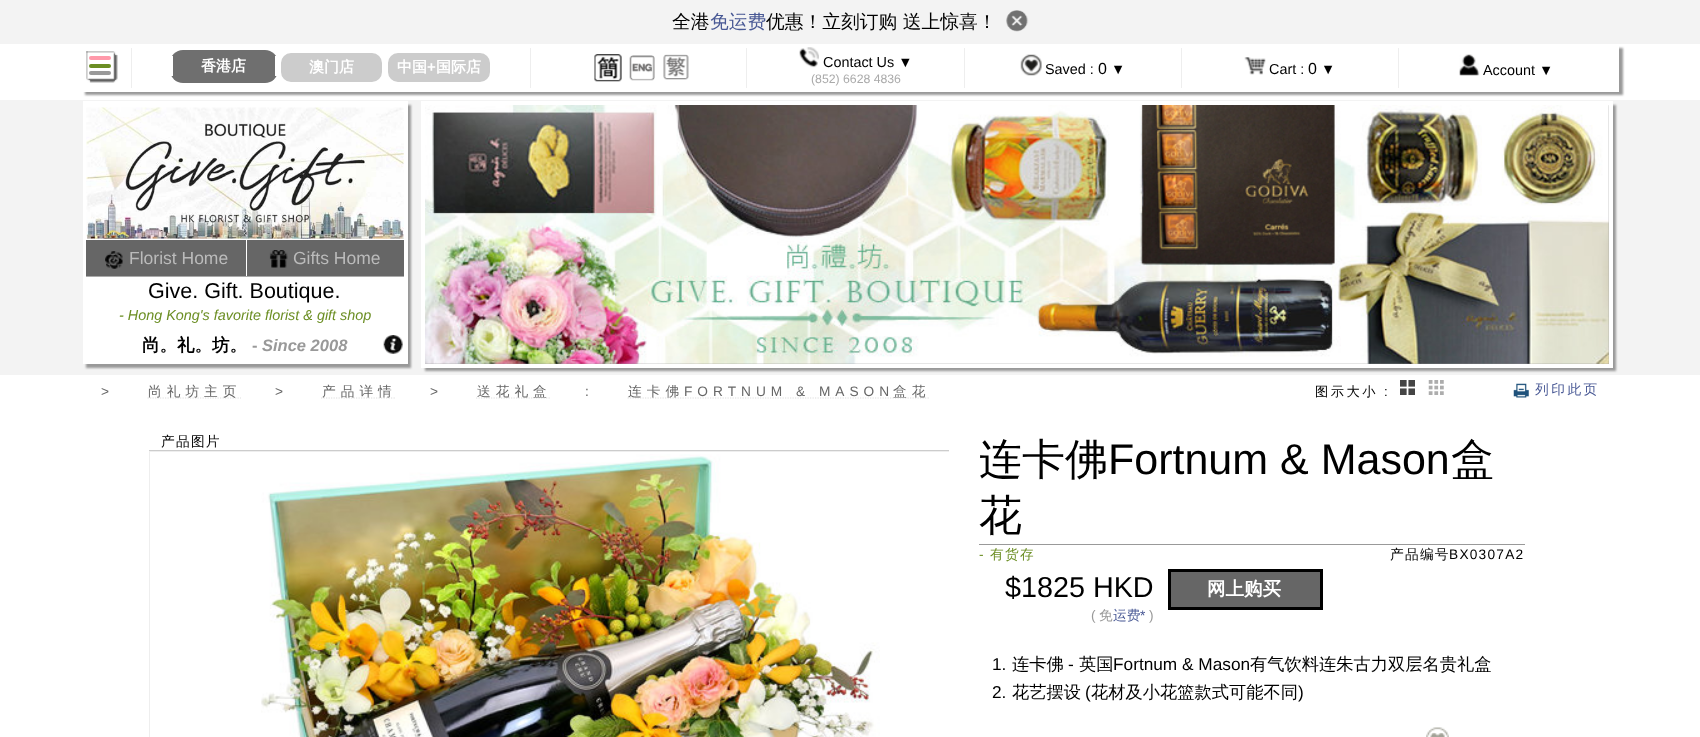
<svg xmlns="http://www.w3.org/2000/svg" xmlns:xlink="http://www.w3.org/1999/xlink" width="1700" height="737" viewBox="0 0 1700 737">
<style>
.cls-1{font:500 18.75px WenQuanYi Zen Hei;fill:#000000}
.cls-2{font:500 18.75px WenQuanYi Zen Hei;fill:#495995}
.cls-3{font:bold 15px WenQuanYi Zen Hei;fill:#ffffff}
.cls-4{font:bold 15px Liberation Sans;fill:#ffffff}
.cls-5{font:14.4px Liberation Sans;fill:#000000}
.cls-6{font:12.25px Liberation Sans;fill:#aaaaaa}
.cls-7{font:16px Liberation Sans;fill:#000000}
.cls-8{font:17.5px Liberation Sans;fill:#bbbbbb}
.cls-9{font:21.5px Liberation Sans;fill:#000000}
.cls-10{font:italic 14.4px Liberation Sans;fill:#6b8e23}
.cls-11{font:bold 17.5px WenQuanYi Zen Hei;fill:#000000}
.cls-12{font:bold 16.5px Liberation Sans;fill:#999999}
.cls-13{font:italic bold 16.5px Liberation Sans;fill:#999999}
.cls-14{font:13.7px Liberation Sans;letter-spacing:5px;fill:#666666}
.cls-15{font:500 13.7px WenQuanYi Zen Hei;letter-spacing:5px;fill:#666666}
.cls-16{font:500 13.25px WenQuanYi Zen Hei;letter-spacing:2.5px;fill:#000000}
.cls-17{font:13.25px Liberation Sans;letter-spacing:2.5px;fill:#000000}
.cls-18{font:500 13.7px WenQuanYi Zen Hei;letter-spacing:2.5px;fill:#495995}
.cls-19{font:500 13.7px WenQuanYi Zen Hei;letter-spacing:1.25px;fill:#000000}
.cls-20{font:500 43px WenQuanYi Zen Hei;fill:#000000}
.cls-21{font:43px Liberation Sans;fill:#000000}
.cls-22{font:13.7px Liberation Sans;letter-spacing:1.25px;fill:#6b8e23}
.cls-23{font:500 13.7px WenQuanYi Zen Hei;letter-spacing:1.25px;fill:#6b8e23}
.cls-24{font:13.7px Liberation Sans;letter-spacing:1.25px;fill:#000000}
.cls-25{font:28.75px Liberation Sans;fill:#000000}
.cls-26{font:13.7px Liberation Sans;fill:#999999}
.cls-27{font:500 13.7px WenQuanYi Zen Hei;fill:#999999}
.cls-28{font:500 13.7px WenQuanYi Zen Hei;fill:#495995}
.cls-29{font:13.7px Liberation Sans;fill:#495995}
.cls-30{font:bold 18.5px WenQuanYi Zen Hei;fill:#ffffff}
.cls-31{font:17.25px Liberation Sans;fill:#000000}
.cls-32{font:500 17.25px WenQuanYi Zen Hei;fill:#000000}
</style>
<defs>
<clipPath id="clip1"><rect x="149" y="451" width="800" height="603"/></clipPath>
</defs>
<rect width="100%" height="100%" fill="#ffffff"/>
<rect fill="#999999" filter="blur(1px)" x="85" y="48" width="1538" height="47"/>
<rect fill="#ffffff" x="85" y="48" width="1530" height="40"/>
<image xlink:href="image0.png" x="86" y="51" width="32" height="32"/>
<rect fill="#ffffff" x="91" y="57" width="20" height="17"/>
<rect fill="#ff99aa" x="89" y="56" width="22" height="4" rx="2"/>
<rect fill="#6b8e23" x="89" y="64" width="22" height="4" rx="2"/>
<rect fill="#999999" x="89" y="71" width="22" height="4" rx="2"/>
<rect fill="#f3f3f3" x="0" y="0" width="1700" height="44"/>
<image xlink:href="image1.png" x="1006" y="10" width="23" height="22"/>
<rect fill="#eeeeee" x="131" y="45" width="1" height="45"/>
<rect fill="#eeeeee" x="530" y="45" width="1" height="45"/>
<rect fill="#eeeeee" x="746" y="45" width="1" height="45"/>
<rect fill="#eeeeee" x="964" y="45" width="1" height="45"/>
<rect fill="#eeeeee" x="1181" y="45" width="1" height="45"/>
<rect fill="#eeeeee" x="1398" y="45" width="1" height="45"/>
<rect fill="#ffffff" x="81" y="45" width="1538" height="3"/>
<rect fill="#ffffff" x="1615" y="44" width="4" height="47"/>
<rect fill="#ffffff" x="81" y="88" width="1538" height="4"/>
<rect fill="#ffffff" x="83" y="44" width="2" height="47"/>
<rect fill="#6f6f6f" x="170" y="50" width="108" height="33" rx="13"/>
<rect fill="#ffffff" x="275" y="56" width="3" height="20"/>
<rect fill="#ffffff" x="170" y="56" width="3" height="20"/>
<rect fill="#cccccc" stroke="#ffffff" stroke-width="3" x="279.5" y="51.5" width="104" height="32" rx="11.5"/>
<rect fill="#cccccc" stroke="#ffffff" stroke-width="3" x="386.5" y="51.5" width="105" height="32" rx="11.5"/>
<image xlink:href="image2.png" x="594" y="54" width="28" height="28"/>
<image xlink:href="image3.png" x="629" y="55" width="26" height="26"/>
<image xlink:href="image4.png" x="663" y="54" width="26" height="26"/>
<image xlink:href="image5.png" x="799" y="47" width="20" height="21"/>
<image xlink:href="image6.png" x="1020" y="54" width="22" height="22"/>
<image xlink:href="image7.png" x="1244" y="57" width="22" height="18"/>
<image xlink:href="image8.png" x="1459" y="54" width="21" height="22"/>
<rect fill="#f3f3f3" x="0" y="100" width="1700" height="275"/>
<rect fill="#999999" filter="blur(1px)" x="86" y="105" width="325" height="263"/>
<rect fill="#ffffff" x="83" y="101" width="325" height="263"/>
<image xlink:href="image9.png" x="86" y="107" width="318" height="132"/>
<rect fill="#666666" x="86" y="240" width="318" height="36"/>
<rect fill="#ffffff" x="246" y="240" width="1" height="36"/>
<image xlink:href="image10.png" x="105" y="251" width="18" height="18"/>
<image xlink:href="image11.png" x="269" y="250" width="19" height="18"/>
<rect fill="#aaaaaa" x="86" y="276" width="318" height="1"/>
<image xlink:href="image12.png" x="383" y="335" width="20" height="19"/>
<rect fill="#999999" filter="blur(1px)" x="425" y="105" width="1191" height="266"/>
<rect fill="none" stroke="#ffffff" stroke-width="4" x="423" y="103" width="1188" height="263"/>
<image xlink:href="image13.png" x="425" y="105" width="1184" height="259"/>
<path fill="none" stroke="#dddddd" stroke-width="1.2" stroke-dasharray="1.25 1.25" d="M147.5 398H241"/>
<path fill="none" stroke="#dddddd" stroke-width="1.2" stroke-dasharray="1.25 1.25" d="M321 398H396"/>
<path fill="none" stroke="#dddddd" stroke-width="1.2" stroke-dasharray="1.25 1.25" d="M476 398H551"/>
<path fill="none" stroke="#dddddd" stroke-width="1.2" stroke-dasharray="1.25 1.25" d="M627.5 398H930"/>
<image xlink:href="image14.png" x="1400" y="380" width="15" height="15"/>
<image xlink:href="image15.png" x="1428" y="380" width="16" height="15"/>
<image xlink:href="image16.png" x="1513" y="383" width="16" height="15"/>
<rect fill="#cccccc" x="149" y="450" width="800" height="1"/>
<g clip-path="url(#clip1)">
<rect fill="none" stroke="#eeeeee" x="149.5" y="451.5" width="801" height="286"/>
</g>
<image xlink:href="image17.png" x="261" y="454" width="619" height="283"/>
<rect fill="#999999" x="979" y="544" width="546" height="1"/>
<rect fill="#666666" stroke="#000000" stroke-width="3" x="1169.5" y="570.5" width="152" height="38"/>
<image xlink:href="image18.png" x="1426" y="727" width="23" height="10"/>
<text class="cls-1" x="672" y="28">全港</text>
<text class="cls-2" x="710" y="28">免运费</text>
<text class="cls-1" x="766" y="28">优惠！立刻订购 送上惊喜！</text>
<text class="cls-3" x="201" y="71">香港店</text>
<text class="cls-3" x="309" y="72">澳门店</text>
<text class="cls-3" x="397" y="72">中国</text>
<text class="cls-4" x="427" y="72">+</text>
<text class="cls-3" x="436" y="72">国际店</text>
<text class="cls-5" x="823" y="67">Contact Us ▼</text>
<text class="cls-6" x="811" y="83">(852) 6628 4836</text>
<text class="cls-5" x="1045" y="74">Saved :</text>
<text class="cls-7" x="1098" y="74">0</text>
<text class="cls-5" x="1111" y="74">▼</text>
<text class="cls-5" x="1269" y="74">Cart :</text>
<text class="cls-7" x="1308" y="74">0</text>
<text class="cls-5" x="1321" y="74">▼</text>
<text class="cls-5" x="1483" y="75">Account ▼</text>
<text class="cls-8" x="129" y="264">Florist Home</text>
<text class="cls-8" x="293" y="264">Gifts Home</text>
<text class="cls-9" x="148" y="298">Give. Gift. Boutique.</text>
<text class="cls-10" x="119" y="320">- Hong Kong's favorite florist &amp; gift shop</text>
<text class="cls-11" x="142" y="351">尚。礼。坊。</text>
<text class="cls-12" x="252" y="351">-</text>
<text class="cls-13" x="262" y="351">Since 2008</text>
<text class="cls-14" x="101" y="396">&gt;</text>
<text class="cls-15" x="148" y="396">尚礼坊主页</text>
<text class="cls-14" x="275" y="396">&gt;</text>
<text class="cls-15" x="322" y="396">产品详情</text>
<text class="cls-14" x="430" y="396">&gt;</text>
<text class="cls-15" x="477" y="396">送花礼盒</text>
<text class="cls-14" x="585" y="396">:</text>
<text class="cls-15" x="628" y="396">连卡佛</text>
<text class="cls-14" x="684" y="396">FORTNUM &amp; MASON</text>
<text class="cls-15" x="893" y="396">盒花</text>
<text class="cls-16" x="1315" y="396">图示大小</text>
<text class="cls-17" x="1384" y="396">:</text>
<text class="cls-18" x="1535" y="394">列印此页</text>
<text class="cls-19" x="161" y="446">产品图片</text>
<text class="cls-20" x="979" y="474">连卡佛</text>
<text class="cls-21" x="1108" y="474">Fortnum &amp; Mason</text>
<text class="cls-20" x="1451" y="474">盒</text>
<text class="cls-20" x="979" y="530">花</text>
<text class="cls-22" x="979" y="559">-</text>
<text class="cls-23" x="990" y="559">有货存</text>
<text class="cls-19" x="1390" y="559">产品编号</text>
<text class="cls-24" x="1449" y="559">BX0307A2</text>
<text class="cls-25" x="1005" y="597">$1825 HKD</text>
<text class="cls-26" x="1091" y="620">(</text>
<text class="cls-27" x="1099" y="620">免</text>
<text class="cls-28" x="1113" y="620">运费</text>
<text class="cls-29" x="1140" y="620">*</text>
<text class="cls-26" x="1149" y="620">)</text>
<text class="cls-30" x="1207" y="595">网上购买</text>
<text class="cls-31" x="992" y="670">1.</text>
<text class="cls-32" x="1012" y="670">连卡佛</text>
<text class="cls-31" x="1068" y="670">-</text>
<text class="cls-32" x="1079" y="670">英国</text>
<text class="cls-31" x="1113" y="670">Fortnum &amp; Mason</text>
<text class="cls-32" x="1250" y="670">有气饮料连朱古力双层名贵礼盒</text>
<text class="cls-31" x="992" y="698">2.</text>
<text class="cls-32" x="1012" y="698">花艺摆设</text>
<text class="cls-31" x="1085" y="698">(</text>
<text class="cls-32" x="1091" y="698">花材及小花篮款式可能不同</text>
<text class="cls-31" x="1298" y="698">)</text>
</svg>
